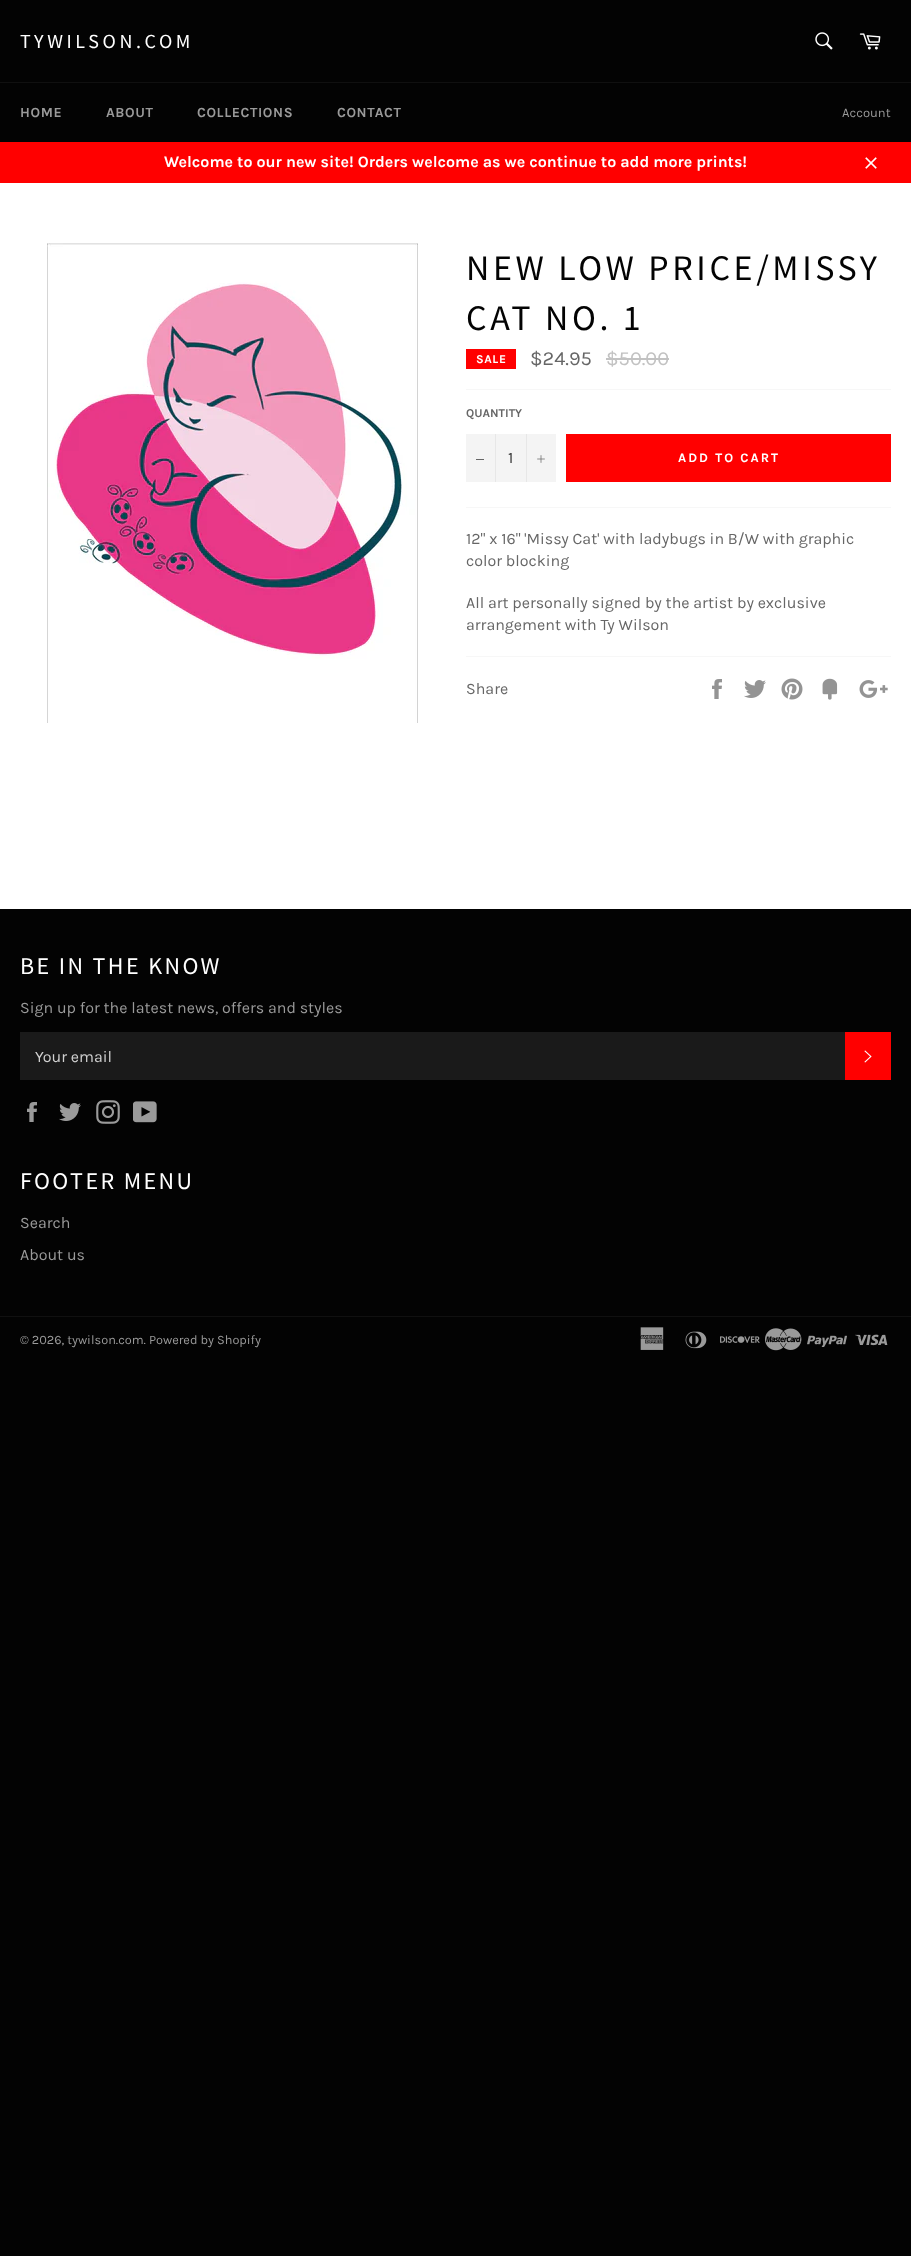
<svg xmlns="http://www.w3.org/2000/svg" xmlns:xlink="http://www.w3.org/1999/xlink" width="911" height="2256" viewBox="0 0 911 2256">
<style>
.cls-1{font:20px Source Sans Pro;letter-spacing:3.6px;fill:#ffffff}
.cls-2{font:bold 14px Karla;letter-spacing:0.6px;fill:#9a9a9a}
.cls-3{font:13px Karla;fill:#9a9a9a}
.cls-4{font:bold 16px Karla;fill:#ffffff}
.cls-5{font:36px Source Sans Pro;letter-spacing:3.6px;fill:#030303}
.cls-6{font:bold 12px Karla;letter-spacing:0.6px;fill:#ffffff}
.cls-7{font:20px Karla;fill:#666666}
.cls-8{font:20px Karla;fill:#c2c2c2}
.cls-9{font:bold 12px Karla;fill:#666666}
.cls-10{font:16px Karla;fill:#333333}
.cls-11{font:bold 13px Karla;letter-spacing:2px;fill:#ffffff}
.cls-12{font:16px Karla;fill:#666666}
.cls-13{font:24px Source Sans Pro;letter-spacing:2.4px;fill:#ffffff}
.cls-14{font:16px Karla;fill:#9a9a9a}
.cls-15{font:16px Karla;fill:#d1d1d1}
.cls-16{font:12.75px Karla;fill:#9a9a9a}
</style>
<rect width="100%" height="100%" fill="#030303"/>
<rect fill="#ffffff" x="0" y="183" width="911" height="726"/>
<image xlink:href="image0.png" x="815" y="32" width="18" height="18"/>
<image xlink:href="image1.png" x="859" y="33" width="22" height="17"/>
<rect fill="#101010" x="0" y="82" width="911" height="1"/>
<rect fill="#ff0000" x="0" y="142" width="911" height="41"/>
<image xlink:href="image2.png" x="865" y="157" width="12" height="12"/>
<image xlink:href="image3.png" x="47" y="243" width="371" height="480"/>
<rect fill="#ff0000" x="466" y="349" width="50" height="20"/>
<rect fill="#c2c2c2" x="606" y="358" width="63" height="2"/>
<rect fill="#f7f7f7" x="466" y="389" width="425" height="1"/>
<rect fill="#f4f4f4" x="466" y="434" width="90" height="48"/>
<rect fill="#e7e7e7" x="495" y="434" width="1" height="48"/>
<rect fill="#666666" x="476" y="459" width="8" height="1"/>
<rect fill="#e7e7e7" x="526" y="434" width="1" height="48"/>
<image xlink:href="image4.png" x="537" y="455" width="8" height="8"/>
<rect fill="#ff0000" x="566" y="434" width="325" height="48"/>
<rect fill="#f7f7f7" x="466" y="507" width="425" height="1"/>
<rect fill="#f7f7f7" x="466" y="656" width="425" height="1"/>
<image xlink:href="image5.png" x="712" y="679" width="10" height="20"/>
<image xlink:href="image6.png" x="744" y="680" width="22" height="18"/>
<image xlink:href="image7.png" x="781" y="678" width="22" height="22"/>
<image xlink:href="image8.png" x="822" y="678" width="16" height="22"/>
<image xlink:href="image9.png" x="859" y="680" width="29" height="18"/>
<rect fill="#1a1a1a" x="20" y="1032" width="825" height="48"/>
<rect fill="#ff0000" x="845" y="1032" width="46" height="48"/>
<image xlink:href="image10.png" x="864" y="1050" width="8" height="13"/>
<image xlink:href="image11.png" x="27" y="1102" width="10" height="20"/>
<image xlink:href="image12.png" x="59" y="1103" width="22" height="18"/>
<image xlink:href="image13.png" x="96" y="1100" width="24" height="24"/>
<image xlink:href="image14.png" x="133" y="1101" width="24" height="22"/>
<rect fill="#101010" x="0" y="1316" width="911" height="1"/>
<image xlink:href="image15.png" x="640" y="1327" width="24" height="23"/>
<image xlink:href="image16.png" x="685" y="1331" width="22" height="18"/>
<image xlink:href="image17.png" x="720" y="1336" width="40" height="7"/>
<image xlink:href="image18.png" x="765" y="1328" width="37" height="23"/>
<image xlink:href="image19.png" x="807" y="1335" width="40" height="12"/>
<image xlink:href="image20.png" x="855" y="1334" width="33" height="12"/>
<text class="cls-1" x="20" y="48">TYWILSON.COM</text>
<text class="cls-2" x="20" y="117">HOME</text>
<text class="cls-2" x="106" y="117">ABOUT</text>
<text class="cls-2" x="197" y="117">COLLECTIONS</text>
<text class="cls-2" x="337" y="117">CONTACT</text>
<text class="cls-3" x="842" y="117">Account</text>
<text class="cls-4" x="164" y="167">Welcome to our new site! Orders welcome as we continue to add more prints!</text>
<text class="cls-5"><tspan x="466" y="280">NEW LOW PRICE/MISSY</tspan><tspan x="466" y="330">CAT NO. 1</tspan></text>
<text class="cls-6" x="476" y="363">SALE</text>
<text class="cls-7" x="530" y="365">$24.95</text>
<text class="cls-8" x="606" y="365">$50.00</text>
<text class="cls-9" x="466" y="417">QUANTITY</text>
<text class="cls-10" x="508" y="463">1</text>
<text class="cls-11" x="678" y="462">ADD TO CART</text>
<text class="cls-12"><tspan x="466" y="544">12" x 16" 'Missy Cat' with ladybugs in B/W with graphic</tspan><tspan x="466" y="566">color blocking</tspan></text>
<text class="cls-12"><tspan x="466" y="608">All art personally signed by the artist by exclusive</tspan><tspan x="466" y="630">arrangement with Ty Wilson</tspan></text>
<text class="cls-12" x="466" y="694">Share</text>
<text class="cls-13" x="20" y="974">BE IN THE KNOW</text>
<text class="cls-14" x="20" y="1013">Sign up for the latest news, offers and styles</text>
<text class="cls-15" x="35" y="1062">Your email</text>
<text class="cls-13" x="20" y="1189">FOOTER MENU</text>
<text class="cls-14" x="20" y="1228">Search</text>
<text class="cls-14" x="20" y="1260">About us</text>
<text class="cls-16" x="20" y="1344">© 2026, tywilson.com. Powered by Shopify</text>
</svg>
